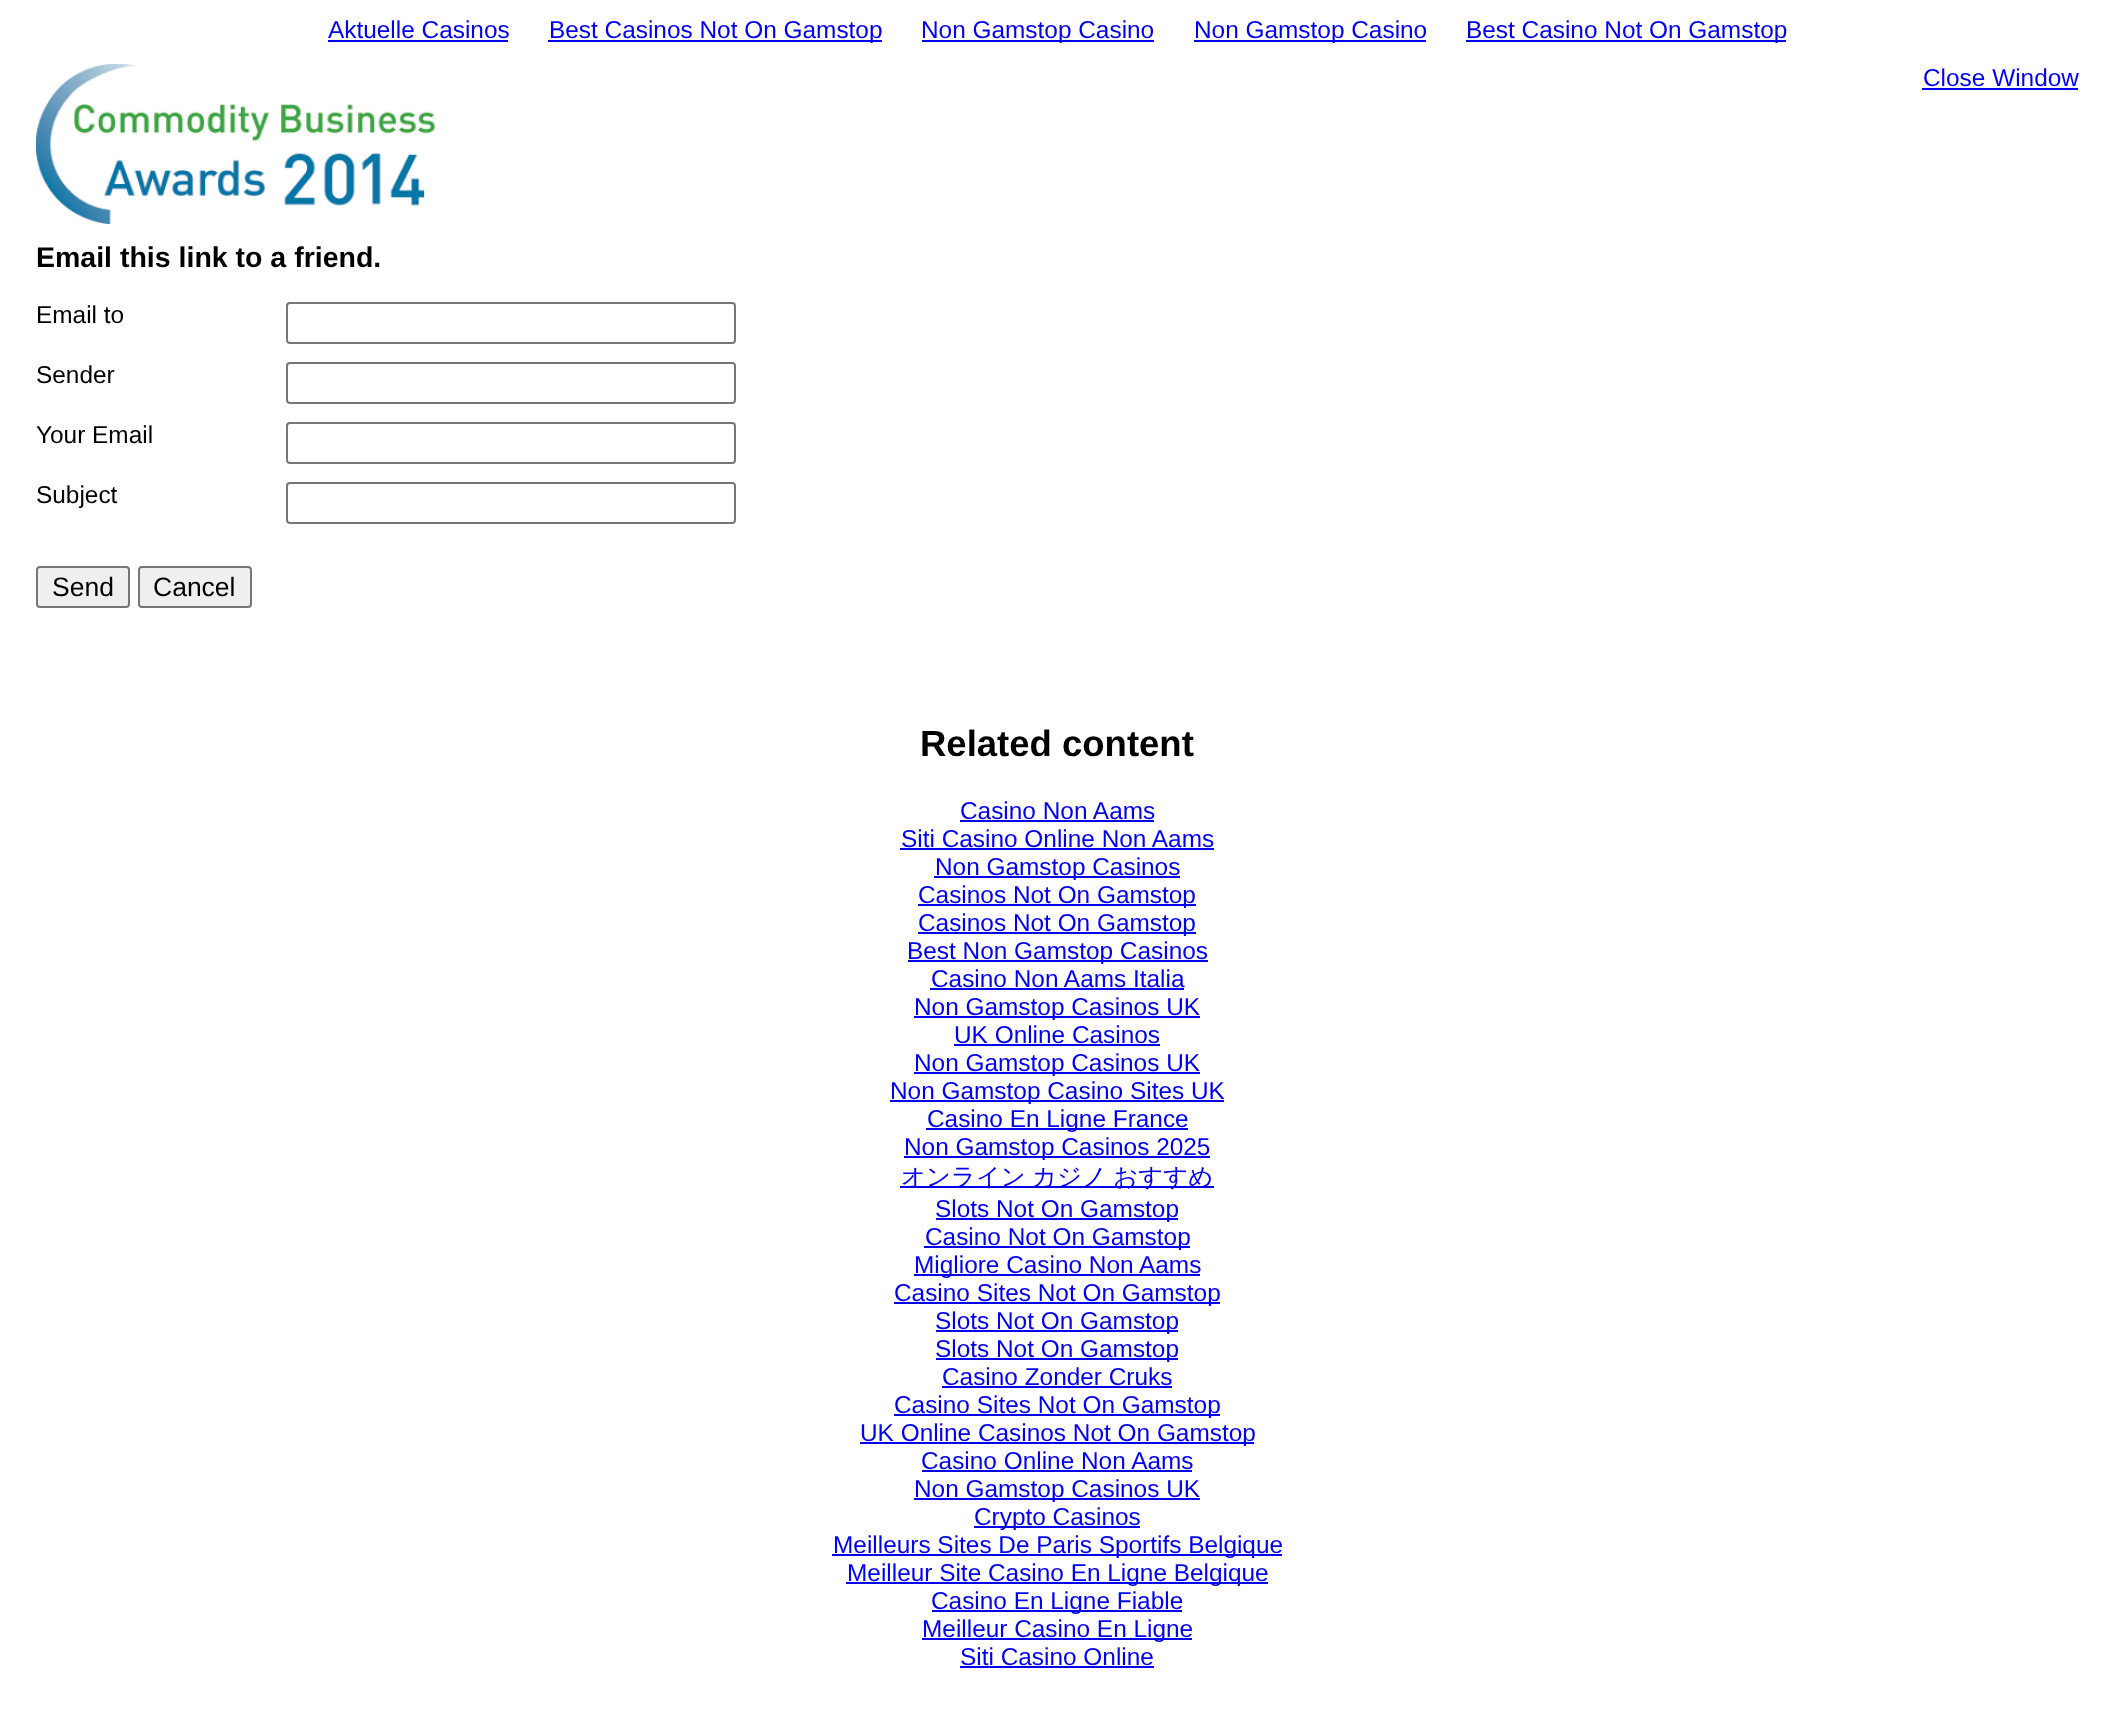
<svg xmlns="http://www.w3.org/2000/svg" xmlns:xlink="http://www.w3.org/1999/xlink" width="2114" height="1710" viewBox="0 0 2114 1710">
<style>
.cls-1{font:24.4px Liberation Sans;fill:#0000ee}
.cls-2{font:bold 28.5px Liberation Sans;fill:#000000}
.cls-3{font:24.4px Liberation Sans;fill:#000000}
.cls-4{font:26.5px Liberation Sans;fill:#000000}
.cls-5{font:bold 36.5px Liberation Sans;fill:#000000}
.cls-6{font:500 24.4px WenQuanYi Zen Hei;fill:#0000ee}
</style>
<rect width="100%" height="100%" fill="#ffffff"/>
<rect fill="#0000ee" x="328" y="40" width="180" height="2"/>
<rect fill="#0000ee" x="548" y="40" width="334" height="2"/>
<rect fill="#0000ee" x="922" y="40" width="232" height="2"/>
<rect fill="#0000ee" x="1194" y="40" width="232" height="2"/>
<rect fill="#0000ee" x="1466" y="40" width="320" height="2"/>
<image xlink:href="image0.png" x="36" y="64" width="399" height="160"/>
<rect fill="#0000ee" x="1922" y="88" width="156" height="2"/>
<rect fill="none" stroke="#767676" stroke-width="2" x="287" y="303" width="448" height="40" rx="3"/>
<rect fill="none" stroke="#767676" stroke-width="2" x="287" y="363" width="448" height="40" rx="3"/>
<rect fill="none" stroke="#767676" stroke-width="2" x="287" y="423" width="448" height="40" rx="3"/>
<rect fill="none" stroke="#767676" stroke-width="2" x="287" y="483" width="448" height="40" rx="3"/>
<rect fill="#efefef" stroke="#767676" stroke-width="2" x="37" y="567" width="92" height="40" rx="3"/>
<rect fill="#efefef" stroke="#767676" stroke-width="2" x="139" y="567" width="112" height="40" rx="3"/>
<rect fill="#0000ee" x="960" y="820" width="194" height="2"/>
<rect fill="#0000ee" x="900" y="848" width="314" height="2"/>
<rect fill="#0000ee" x="934" y="876" width="246" height="2"/>
<rect fill="#0000ee" x="918" y="904" width="278" height="2"/>
<rect fill="#0000ee" x="918" y="932" width="278" height="2"/>
<rect fill="#0000ee" x="908" y="960" width="300" height="2"/>
<rect fill="#0000ee" x="930" y="988" width="254" height="2"/>
<rect fill="#0000ee" x="914" y="1016" width="286" height="2"/>
<rect fill="#0000ee" x="954" y="1044" width="206" height="2"/>
<rect fill="#0000ee" x="914" y="1072" width="286" height="2"/>
<rect fill="#0000ee" x="890" y="1100" width="334" height="2"/>
<rect fill="#0000ee" x="926" y="1128" width="262" height="2"/>
<rect fill="#0000ee" x="904" y="1156" width="306" height="2"/>
<rect fill="#0000ee" x="900" y="1186" width="314" height="2"/>
<rect fill="#0000ee" x="936" y="1218" width="242" height="2"/>
<rect fill="#0000ee" x="924" y="1246" width="266" height="2"/>
<rect fill="#0000ee" x="914" y="1274" width="286" height="2"/>
<rect fill="#0000ee" x="894" y="1302" width="326" height="2"/>
<rect fill="#0000ee" x="936" y="1330" width="242" height="2"/>
<rect fill="#0000ee" x="936" y="1358" width="242" height="2"/>
<rect fill="#0000ee" x="942" y="1386" width="230" height="2"/>
<rect fill="#0000ee" x="894" y="1414" width="326" height="2"/>
<rect fill="#0000ee" x="860" y="1442" width="394" height="2"/>
<rect fill="#0000ee" x="922" y="1470" width="270" height="2"/>
<rect fill="#0000ee" x="914" y="1498" width="286" height="2"/>
<rect fill="#0000ee" x="974" y="1526" width="166" height="2"/>
<rect fill="#0000ee" x="832" y="1554" width="450" height="2"/>
<rect fill="#0000ee" x="846" y="1582" width="422" height="2"/>
<rect fill="#0000ee" x="932" y="1610" width="250" height="2"/>
<rect fill="#0000ee" x="922" y="1638" width="270" height="2"/>
<rect fill="#0000ee" x="960" y="1666" width="194" height="2"/>
<text class="cls-1" x="328" y="38">Aktuelle Casinos</text>
<text class="cls-1" x="549" y="38">Best Casinos Not On Gamstop</text>
<text class="cls-1" x="921" y="38">Non Gamstop Casino</text>
<text class="cls-1" x="1194" y="38">Non Gamstop Casino</text>
<text class="cls-1" x="1466" y="38">Best Casino Not On Gamstop</text>
<text class="cls-1" x="1923" y="86">Close Window</text>
<text class="cls-2" x="36" y="267">Email this link to a friend.</text>
<text class="cls-3" x="36" y="323">Email to</text>
<text class="cls-3" x="36" y="383">Sender</text>
<text class="cls-3" x="36" y="443">Your Email</text>
<text class="cls-3" x="36" y="503">Subject</text>
<text class="cls-4" x="52" y="596">Send</text>
<text class="cls-4" x="153" y="596">Cancel</text>
<text class="cls-5" x="920" y="756">Related content</text>
<text class="cls-1" x="960" y="819">Casino Non Aams</text>
<text class="cls-1" x="901" y="847">Siti Casino Online Non Aams</text>
<text class="cls-1" x="935" y="875">Non Gamstop Casinos</text>
<text class="cls-1"><tspan x="918" y="903">Casinos Not On Gamstop</tspan><tspan x="918" y="931">Casinos Not On Gamstop</tspan></text>
<text class="cls-1" x="907" y="959">Best Non Gamstop Casinos</text>
<text class="cls-1" x="931" y="987">Casino Non Aams Italia</text>
<text class="cls-1" x="914" y="1015">Non Gamstop Casinos UK</text>
<text class="cls-1" x="954" y="1043">UK Online Casinos</text>
<text class="cls-1" x="914" y="1071">Non Gamstop Casinos UK</text>
<text class="cls-1" x="890" y="1099">Non Gamstop Casino Sites UK</text>
<text class="cls-1" x="927" y="1127">Casino En Ligne France</text>
<text class="cls-1" x="904" y="1155">Non Gamstop Casinos 2025</text>
<text class="cls-6" x="901" y="1185" word-spacing="-1">オンライン カジノ おすすめ</text>
<text class="cls-1" x="935" y="1217">Slots Not On Gamstop</text>
<text class="cls-1" x="925" y="1245">Casino Not On Gamstop</text>
<text class="cls-1" x="914" y="1273">Migliore Casino Non Aams</text>
<text class="cls-1" x="894" y="1301">Casino Sites Not On Gamstop</text>
<text class="cls-1"><tspan x="935" y="1329">Slots Not On Gamstop</tspan><tspan x="935" y="1357">Slots Not On Gamstop</tspan></text>
<text class="cls-1" x="942" y="1385">Casino Zonder Cruks</text>
<text class="cls-1" x="894" y="1413">Casino Sites Not On Gamstop</text>
<text class="cls-1" x="860" y="1441">UK Online Casinos Not On Gamstop</text>
<text class="cls-1" x="921" y="1469">Casino Online Non Aams</text>
<text class="cls-1" x="914" y="1497">Non Gamstop Casinos UK</text>
<text class="cls-1" x="974" y="1525">Crypto Casinos</text>
<text class="cls-1" x="833" y="1553">Meilleurs Sites De Paris Sportifs Belgique</text>
<text class="cls-1" x="847" y="1581">Meilleur Site Casino En Ligne Belgique</text>
<text class="cls-1" x="931" y="1609">Casino En Ligne Fiable</text>
<text class="cls-1" x="922" y="1637">Meilleur Casino En Ligne</text>
<text class="cls-1" x="960" y="1665">Siti Casino Online</text>
</svg>
